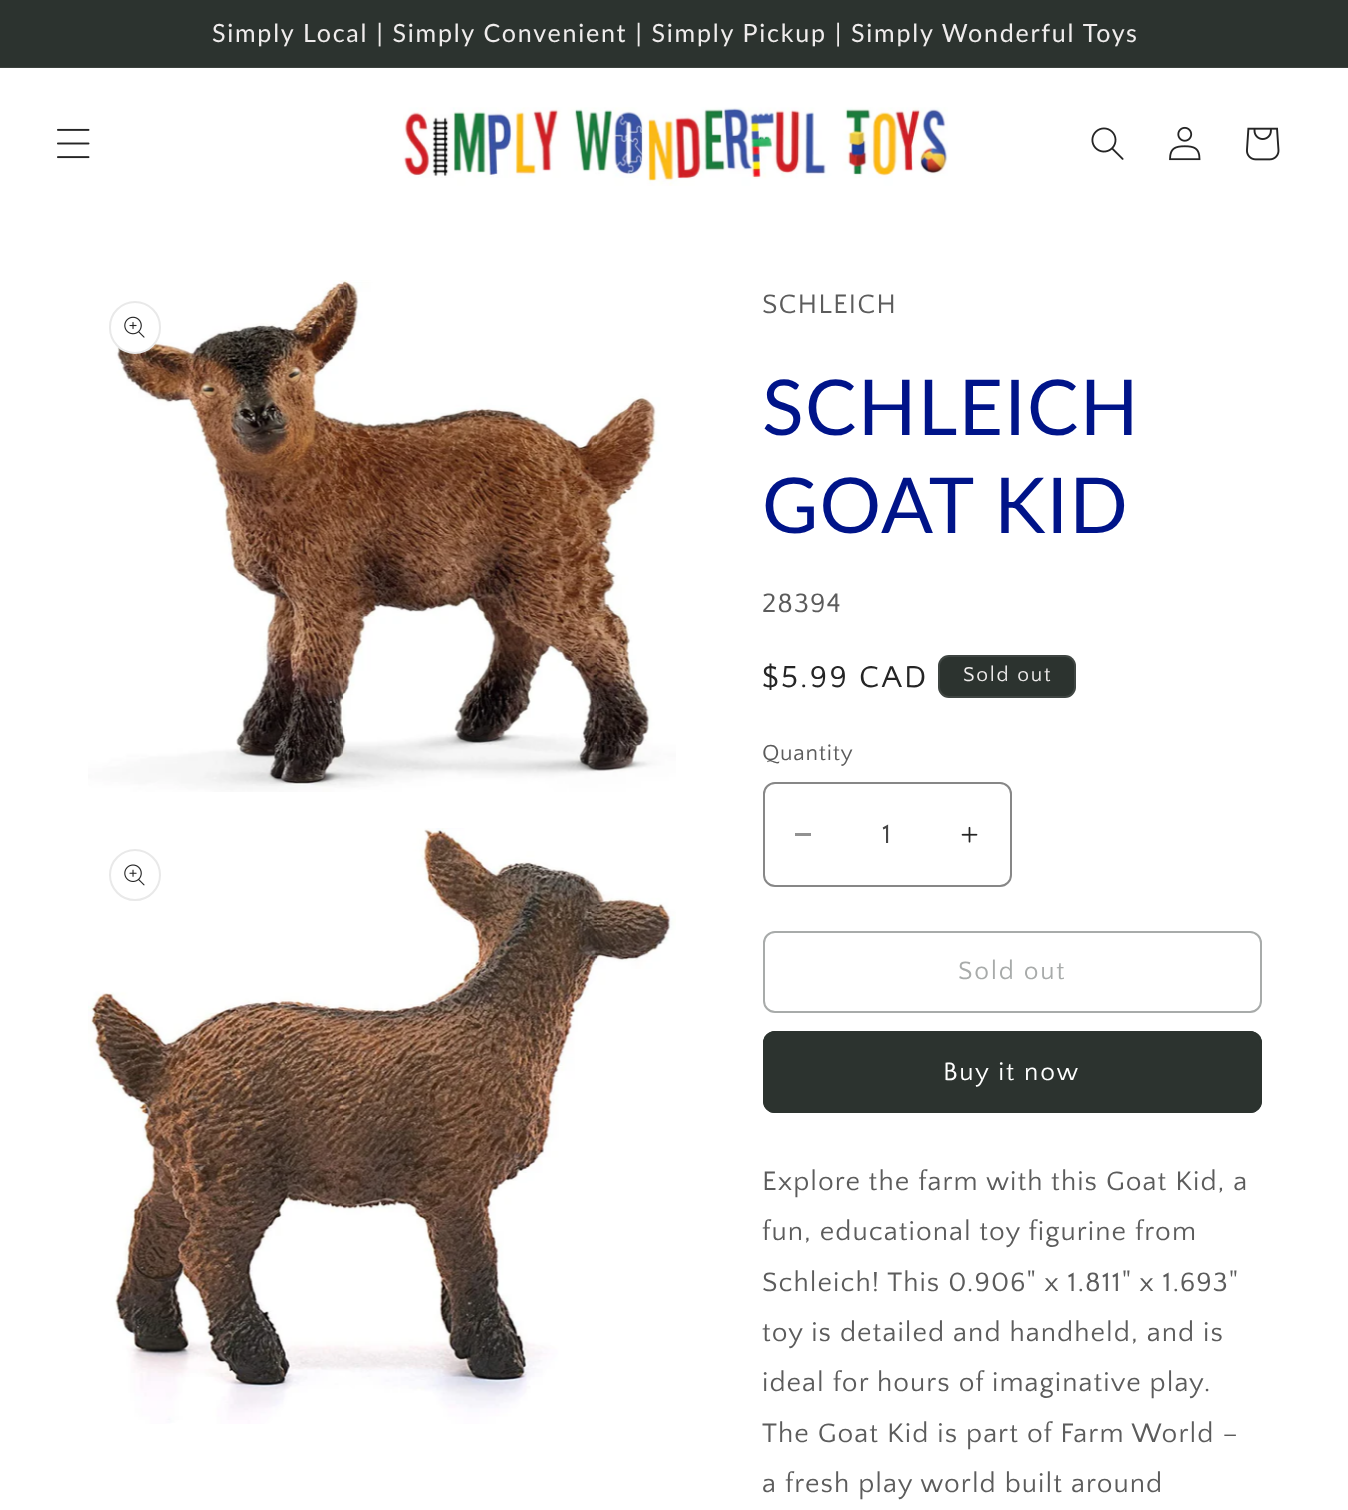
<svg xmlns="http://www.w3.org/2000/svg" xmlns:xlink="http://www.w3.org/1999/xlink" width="1348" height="1510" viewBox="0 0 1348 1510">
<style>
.cls-1{font:25.05px Lato;letter-spacing:1.75px;fill:#efecec}
.cls-2{font:28px Quattrocento Sans;letter-spacing:1.05px;fill:#5c5c5c}
.cls-3{font:77px Lato;letter-spacing:1.25px;fill:#001489}
.cls-4{font:31.5px Quattrocento Sans;letter-spacing:2.25px;fill:#252525}
.cls-5{font:21px Quattrocento Sans;letter-spacing:1.75px;fill:#efecec}
.cls-6{font:23px Quattrocento Sans;letter-spacing:0.75px;fill:#5c5c5c}
.cls-7{font:28px Quattrocento Sans;fill:#464646}
.cls-8{font:26.25px Quattrocento Sans;letter-spacing:1.75px;fill:#a8abaa}
.cls-9{font:26.25px Quattrocento Sans;letter-spacing:1.75px;fill:#ffffff}
</style>
<rect width="100%" height="100%" fill="#ffffff"/>
<rect fill="#2c332f" x="0" y="0" width="1348" height="67"/>
<rect fill="#3c423e" x="0" y="67" width="1348" height="1"/>
<image xlink:href="image0.png" x="57" y="128" width="33" height="31"/>
<image xlink:href="image1.png" x="403" y="107" width="545" height="79"/>
<image xlink:href="image2.png" x="1091" y="127" width="33" height="33"/>
<image xlink:href="image3.png" x="1169" y="126" width="32" height="35"/>
<image xlink:href="image4.png" x="1246" y="127" width="34" height="34"/>
<image xlink:href="image5.png" x="88" y="280" width="588" height="512"/>
<rect fill="#ffffff" x="109" y="301" width="52" height="53" rx="26"/>
<rect fill="none" stroke="#252525" stroke-opacity="0.1" stroke-width="2" x="110" y="302" width="50" height="51" rx="25"/>
<image xlink:href="image6.png" x="124" y="316" width="21" height="22"/>
<image xlink:href="image7.png" x="88" y="828" width="588" height="596"/>
<circle fill="none" stroke="#e9e9e9" stroke-width="2" cx="135" cy="875" r="25"/>
<image xlink:href="image8.png" x="124" y="864" width="21" height="22"/>
<rect fill="#2c332f" x="938" y="655" width="138" height="43" rx="11"/>
<rect fill="none" stroke="#efecec" stroke-opacity="0.1" stroke-width="2" x="939" y="656" width="136" height="41" rx="10"/>
<rect fill="#929292" x="795" y="833" width="16" height="3"/>
<image xlink:href="image9.png" x="961" y="826" width="17" height="17"/>
<rect fill="none" stroke="#878787" stroke-width="2" x="764" y="783" width="247" height="103" rx="11"/>
<rect fill="none" stroke="#a8abaa" stroke-width="2" x="764" y="932" width="497" height="80" rx="11"/>
<rect fill="#2c332f" x="763" y="1031" width="499" height="82" rx="12"/>
<rect fill="none" stroke="#2c332f" stroke-width="2" x="764" y="1032" width="497" height="80" rx="11"/>
<text class="cls-1" x="212" y="42">Simply Local | Simply Convenient | Simply Pickup | Simply Wonderful Toys</text>
<text class="cls-2" x="762" y="313">SCHLEICH</text>
<text class="cls-3"><tspan x="762" y="435">SCHLEICH</tspan><tspan x="762" y="533">GOAT KID</tspan></text>
<text class="cls-2" x="762" y="612">28394</text>
<text class="cls-4" x="762" y="687">$5.99 CAD</text>
<text class="cls-5" x="963" y="681">Sold out</text>
<text class="cls-6" x="762" y="760">Quantity</text>
<text class="cls-7" x="882" y="843">1</text>
<text class="cls-8" x="958" y="979">Sold out</text>
<text class="cls-9" x="943" y="1080">Buy it now</text>
<text class="cls-2"><tspan x="762" y="1190">Explore the farm with this Goat Kid, a</tspan><tspan x="762" y="1240">fun, educational toy figurine from</tspan><tspan x="762" y="1291">Schleich! This 0.906" x 1.811" x 1.693"</tspan><tspan x="762" y="1341">toy is detailed and handheld, and is</tspan><tspan x="762" y="1391">ideal for hours of imaginative play.</tspan><tspan x="762" y="1442">The Goat Kid is part of Farm World –</tspan><tspan x="762" y="1492">a fresh play world built around</tspan></text>
</svg>
